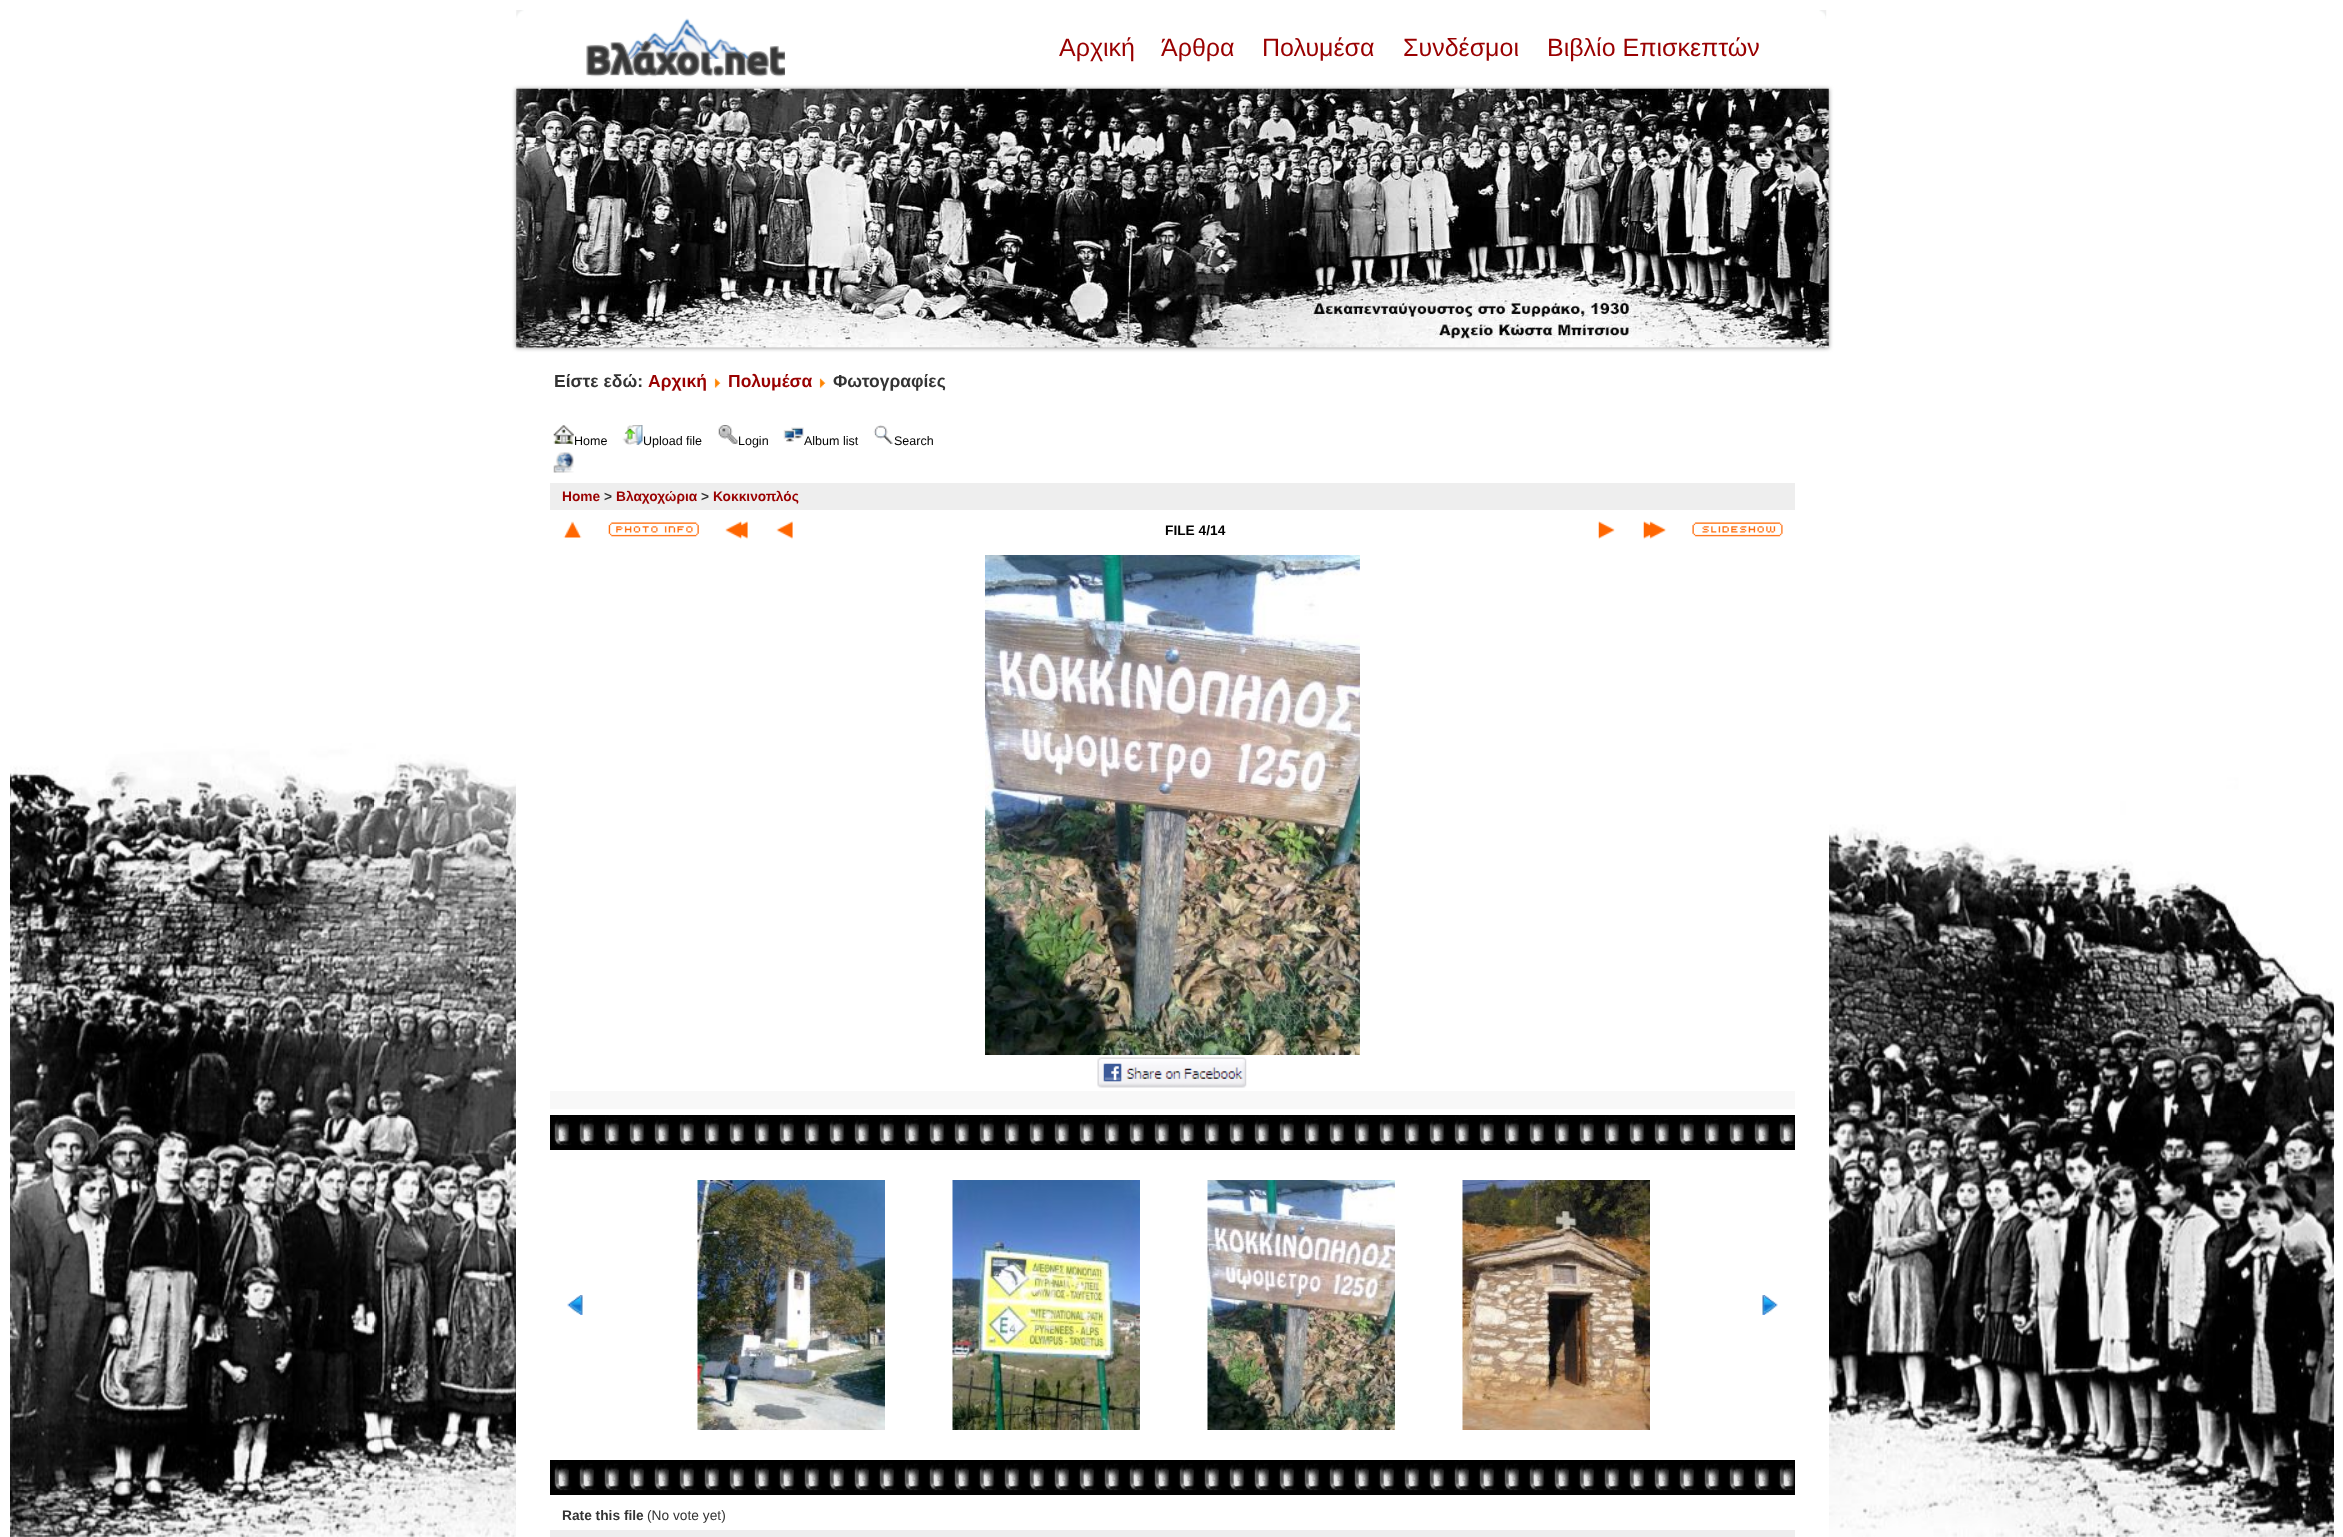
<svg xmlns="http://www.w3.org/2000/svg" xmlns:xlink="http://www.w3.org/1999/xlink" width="2343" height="1537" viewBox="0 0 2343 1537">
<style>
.cls-1{font:25px Liberation Sans;fill:#990000}
.cls-2{font:bold 17.5px Liberation Sans;fill:#333333}
.cls-3{font:bold 17.5px Liberation Sans;fill:#990000}
.cls-4{font:12.5px Liberation Sans;fill:#000000}
.cls-5{font:bold 13.75px Liberation Sans;fill:#990000}
.cls-6{font:bold 13.75px Liberation Sans;fill:#333333}
.cls-7{font:bold 13.75px Liberation Sans;fill:#000000}
.cls-8{font:13.75px Liberation Sans;fill:#333333}
</style>
<rect width="100%" height="100%" fill="#ffffff"/>
<image xlink:href="image0.png" x="10" y="743" width="2324" height="794"/>
<image xlink:href="image1.png" x="516" y="10" width="8" height="8"/>
<image xlink:href="image2.png" x="1819" y="10" width="8" height="9"/>
<image xlink:href="image3.png" x="586" y="18" width="199" height="59"/>
<rect fill="#949393" filter="blur(2px)" x="516" y="89" width="1313" height="259"/>
<image xlink:href="image4.png" x="516" y="88" width="1313" height="260"/>
<image xlink:href="image5.png" x="714" y="378" width="7" height="10"/>
<image xlink:href="image5.png" x="819" y="378" width="7" height="10"/>
<rect fill="#ffffff" x="516" y="743" width="1313" height="794"/>
<image xlink:href="image6.png" x="553" y="425" width="21" height="20"/>
<image xlink:href="image7.png" x="622" y="425" width="21" height="20"/>
<image xlink:href="image8.png" x="718" y="425" width="20" height="19"/>
<image xlink:href="image9.png" x="783" y="427" width="21" height="15"/>
<image xlink:href="image10.png" x="873" y="425" width="20" height="19"/>
<image xlink:href="image11.png" x="553" y="452" width="21" height="21"/>
<rect fill="#eeeeee" x="550" y="483" width="1245" height="27"/>
<image xlink:href="image12.png" x="563" y="521" width="19" height="17"/>
<image xlink:href="image13.png" x="608" y="522" width="91" height="15"/>
<image xlink:href="image14.png" x="725" y="521" width="23" height="18"/>
<image xlink:href="image15.png" x="776" y="521" width="17" height="18"/>
<image xlink:href="image16.png" x="1598" y="521" width="17" height="18"/>
<image xlink:href="image17.png" x="1643" y="521" width="24" height="18"/>
<image xlink:href="image18.png" x="1692" y="522" width="91" height="15"/>
<image xlink:href="image19.png" x="985" y="555" width="375" height="500"/>
<image xlink:href="image20.png" x="1097" y="1057" width="150" height="31"/>
<rect fill="#f8f8f8" x="550" y="1091" width="1245" height="18"/>
<image xlink:href="image21.png" x="550" y="1115" width="1245" height="35"/>
<image xlink:href="image22.png" x="558" y="1129" width="1" height="10"/>
<image xlink:href="image23.png" x="567" y="1295" width="16" height="20"/>
<image xlink:href="image24.png" x="697" y="1180" width="188" height="250"/>
<image xlink:href="image25.png" x="952" y="1180" width="188" height="250"/>
<image xlink:href="image26.png" x="1207" y="1180" width="188" height="250"/>
<image xlink:href="image27.png" x="1462" y="1180" width="188" height="250"/>
<image xlink:href="image28.png" x="1762" y="1295" width="16" height="20"/>
<image xlink:href="image29.png" x="550" y="1460" width="1245" height="35"/>
<image xlink:href="image22.png" x="558" y="1474" width="1" height="10"/>
<rect fill="#eeeeee" x="550" y="1530" width="1245" height="7"/>
<text class="cls-1" x="1059" y="56">Αρχική</text>
<text class="cls-1" x="1161" y="56">Άρθρα</text>
<text class="cls-1" x="1262" y="56">Πολυμέσα</text>
<text class="cls-1" x="1403" y="56">Συνδέσμοι</text>
<text class="cls-1" x="1547" y="56">Βιβλίο Επισκεπτών</text>
<text class="cls-2" x="554" y="387">Είστε εδώ:</text>
<text class="cls-3" x="648" y="387">Αρχική</text>
<text class="cls-3" x="728" y="387">Πολυμέσα</text>
<text class="cls-2" x="833" y="387">Φωτογραφίες</text>
<text class="cls-4" x="574" y="445">Home</text>
<text class="cls-4" x="643" y="445">Upload file</text>
<text class="cls-4" x="738" y="445">Login</text>
<text class="cls-4" x="804" y="445">Album list</text>
<text class="cls-4" x="894" y="445">Search</text>
<text class="cls-5" x="562" y="501">Home</text>
<text class="cls-6" x="604" y="501">&gt;</text>
<text class="cls-5" x="616" y="501">Βλαχοχώρια</text>
<text class="cls-6" x="701" y="501">&gt;</text>
<text class="cls-5" x="713" y="501">Κοκκινοπλός</text>
<text class="cls-7" x="1165" y="535">FILE 4/14</text>
<text class="cls-6" x="562" y="1520">Rate this file</text>
<text class="cls-8" x="647" y="1520">(No vote yet)</text>
</svg>
